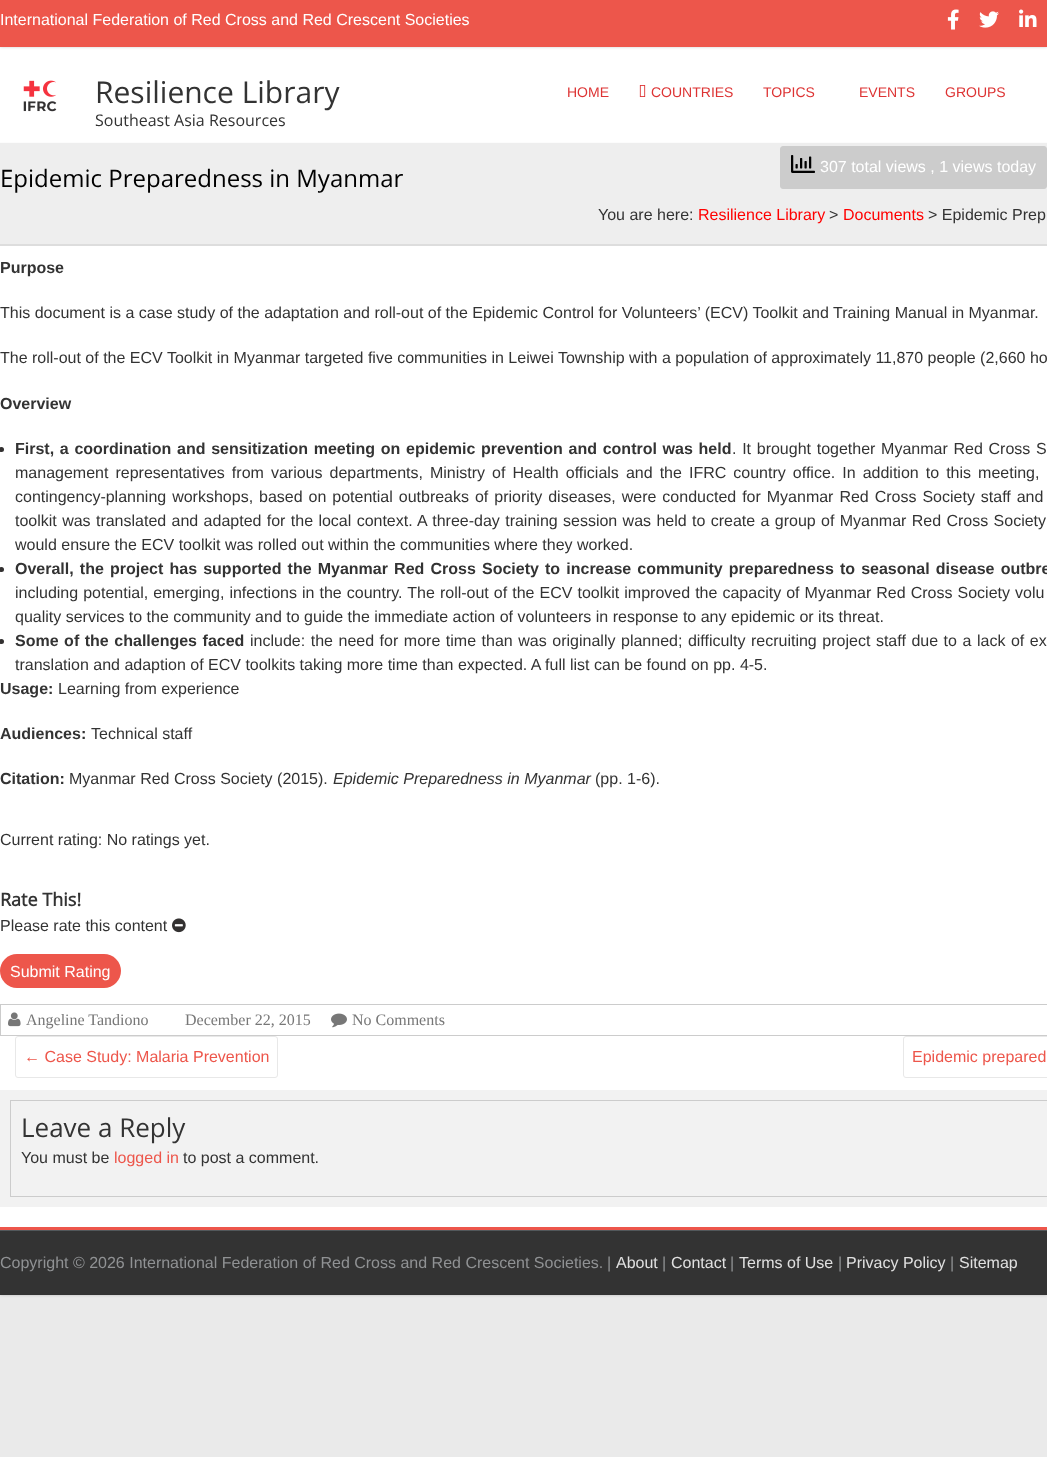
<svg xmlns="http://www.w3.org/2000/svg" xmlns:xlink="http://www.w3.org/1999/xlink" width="1047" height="1457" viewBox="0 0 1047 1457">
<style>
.cls-1{font:16px Liberation Sans;fill:#ffffff}
.cls-2{font:30px Open Sans;fill:#333333}
.cls-3{font:16px Open Sans;fill:#333333}
.cls-4{font:14px Liberation Sans;fill:#dd3333}
.cls-5{font:24px Open Sans;fill:#000000}
.cls-6{font:16px Liberation Sans;fill:#333333}
.cls-7{font:16px Liberation Sans;fill:#ff0000}
.cls-8{font:bold 16px Liberation Sans;fill:#333333}
.cls-9{font:italic 16px Liberation Sans;fill:#333333}
.cls-10{font:bold 18px Open Sans;fill:#333333}
.cls-11{font:16px Liberation Serif;fill:#777777}
.cls-12{font:16px Liberation Sans;fill:#ed564b}
.cls-13{font:26px Open Sans;fill:#333333}
.cls-14{font:16px Liberation Sans;fill:#909294}
.cls-15{font:16px Liberation Sans;fill:#e0e0e0}
</style>
<rect width="100%" height="100%" fill="#eaeaea"/>
<rect fill="#000000" fill-opacity="0.2" filter="blur(1.5px)" x="0" y="0" width="1047" height="1295"/>
<rect fill="#ffffff" x="0" y="47" width="1047" height="1180"/>
<rect fill="#000000" fill-opacity="0.2" filter="blur(1.5px)" x="0" y="0" width="1047" height="47"/>
<rect fill="#ed564b" x="0" y="0" width="1047" height="47"/>
<image xlink:href="image0.png" x="947" y="9" width="12" height="21"/>
<image xlink:href="image1.png" x="979" y="11" width="20" height="17"/>
<image xlink:href="image2.png" x="1019" y="9" width="18" height="18"/>
<image xlink:href="image3.png" x="23" y="80" width="34" height="32"/>
<image xlink:href="image4.png" x="639" y="85" width="7" height="12"/>
<rect fill="#eeeeee" x="0" y="143" width="1047" height="101"/>
<rect fill="#fcfcfc" x="0" y="142" width="1047" height="1"/>
<rect fill="#dddddd" x="0" y="244" width="1047" height="2"/>
<rect fill="#cccccc" stroke="#cccccc" x="780.5" y="146.5" width="266" height="42" rx="2.5"/>
<image xlink:href="image5.png" x="791" y="155" width="24" height="18"/>
<circle fill="#333131" cx="1.5" cy="449.5" r="2.5"/>
<circle fill="#333131" cx="1.5" cy="569.5" r="2.5"/>
<circle fill="#333131" cx="1.5" cy="641.5" r="2.5"/>
<image xlink:href="image6.png" x="172" y="918" width="14" height="15"/>
<rect fill="#ed564b" x="0" y="954" width="121" height="34" rx="17"/>
<rect fill="none" stroke="#cccccc" x="0.5" y="1004.5" width="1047" height="31"/>
<image xlink:href="image7.png" x="8" y="1012" width="13" height="15"/>
<image xlink:href="image8.png" x="331" y="1013" width="16" height="15"/>
<rect fill="none" stroke="#e8e8e8" x="15.5" y="1036.5" width="262" height="41" rx="2.5"/>
<rect fill="none" stroke="#e8e8e8" x="903.5" y="1036.5" width="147" height="41" rx="2.5"/>
<rect fill="#f2f2f2" x="0" y="1090" width="1047" height="117"/>
<rect fill="none" stroke="#cccccc" x="10.5" y="1100.5" width="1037" height="96"/>
<rect fill="#333333" x="0" y="1231" width="1047" height="64"/>
<rect fill="#ed564b" x="0" y="1227" width="1047" height="3"/>
<rect fill="#52585b" x="0" y="1230" width="1047" height="1"/>
<text class="cls-1" x="0" y="25">International Federation of Red Cross and Red Crescent Societies</text>
<text class="cls-2" x="95" y="103">Resilience Library</text>
<text class="cls-3" x="95" y="126">Southeast Asia Resources</text>
<text class="cls-4" x="567" y="97">HOME</text>
<text class="cls-4" x="651" y="97">COUNTRIES</text>
<text class="cls-4" x="763" y="97">TOPICS</text>
<text class="cls-4" x="859" y="97">EVENTS</text>
<text class="cls-4" x="945" y="97">GROUPS</text>
<text class="cls-5" x="0" y="187">Epidemic Preparedness in Myanmar</text>
<text class="cls-6" x="598" y="220">You are here:</text>
<text class="cls-7" x="698" y="220">Resilience Library</text>
<text class="cls-6" x="829" y="220">&gt;</text>
<text class="cls-7" x="843" y="220">Documents</text>
<text class="cls-6" x="928" y="220">&gt; Epidemic Prep</text>
<text class="cls-1" x="820" y="172">307 total views , 1 views today</text>
<text class="cls-8" x="0" y="273">Purpose</text>
<text class="cls-6" x="0" y="318">This document is a case study of the adaptation and roll-out of the Epidemic Control for Volunteers’ (ECV) Toolkit and Training Manual in Myanmar.</text>
<text class="cls-6" x="0" y="363">The roll-out of the ECV Toolkit in Myanmar targeted five communities in Leiwei Township with a population of approximately 11,870 people (2,660 ho</text>
<text class="cls-8" x="0" y="409">Overview</text>
<text class="cls-8" x="15" y="454" word-spacing="1.25">First, a coordination and sensitization meeting on epidemic prevention and control was held</text>
<text class="cls-6" x="732" y="454" word-spacing="1.25">. It brought together Myanmar Red Cross S</text>
<text class="cls-6"><tspan x="15" y="478" word-spacing="2.6">management representatives from various departments, Ministry of Health officials and the IFRC country office. In addition to this meeting,</tspan><tspan x="15" y="502" word-spacing="1.5">contingency-planning workshops, based on potential outbreaks of priority diseases, were conducted for Myanmar Red Cross Society staff and</tspan><tspan x="15" y="526" word-spacing="0.9">toolkit was translated and adapted for the local context. A three-day training session was held to create a group of Myanmar Red Cross Society</tspan><tspan x="15" y="550">would ensure the ECV toolkit was rolled out within the communities where they worked.</tspan></text>
<text class="cls-8" x="15" y="574" word-spacing="1.7">Overall, the project has supported the Myanmar Red Cross Society to increase community preparedness to seasonal disease outbre</text>
<text class="cls-6"><tspan x="15" y="598" word-spacing="0.6">including potential, emerging, infections in the country. The roll-out of the ECV toolkit improved the capacity of Myanmar Red Cross Society volu</tspan><tspan x="15" y="622">quality services to the community and to guide the immediate action of volunteers in response to any epidemic or its threat.</tspan></text>
<text class="cls-8" x="15" y="646" word-spacing="1.1">Some of the challenges faced</text>
<text class="cls-6" x="250" y="646" word-spacing="1.1">include: the need for more time than was originally planned; difficulty recruiting project staff due to a lack of ex</text>
<text class="cls-6" x="15" y="670">translation and adaption of ECV toolkits taking more time than expected. A full list can be found on pp. 4-5.</text>
<text class="cls-8" x="0" y="694">Usage:</text>
<text class="cls-6" x="58" y="694">Learning from experience</text>
<text class="cls-8" x="0" y="739">Audiences:</text>
<text class="cls-6" x="91" y="739">Technical staff</text>
<text class="cls-8" x="0" y="784">Citation:</text>
<text class="cls-6" x="69" y="784">Myanmar Red Cross Society (2015).</text>
<text class="cls-9" x="333" y="784">Epidemic Preparedness in Myanmar</text>
<text class="cls-6" x="595" y="784">(pp. 1-6).</text>
<text class="cls-6" x="0" y="845">Current rating: No ratings yet.</text>
<text class="cls-10" x="0" y="906">Rate This!</text>
<text class="cls-6" x="0" y="931">Please rate this content</text>
<text class="cls-1" x="10" y="977">Submit Rating</text>
<text class="cls-11" x="26" y="1025">Angeline Tandiono</text>
<text class="cls-11" x="185" y="1025">December 22, 2015</text>
<text class="cls-11" x="352" y="1025">No Comments</text>
<text class="cls-12" x="24" y="1062">← Case Study: Malaria Prevention</text>
<text class="cls-12" x="912" y="1062">Epidemic prepared</text>
<text class="cls-13" x="21" y="1137">Leave a Reply</text>
<text class="cls-6" x="21" y="1163">You must be</text>
<text class="cls-12" x="114" y="1163">logged in</text>
<text class="cls-6" x="183" y="1163">to post a comment.</text>
<text class="cls-14" x="0" y="1268">Copyright © 2026 International Federation of Red Cross and Red Crescent Societies.</text>
<text class="cls-14" x="607" y="1268">|</text>
<text class="cls-15" x="616" y="1268">About</text>
<text class="cls-14" x="662" y="1268">|</text>
<text class="cls-15" x="671" y="1268">Contact</text>
<text class="cls-14" x="730" y="1268">|</text>
<text class="cls-15" x="739" y="1268">Terms of Use</text>
<text class="cls-14" x="838" y="1268">|</text>
<text class="cls-15" x="846" y="1268">Privacy Policy</text>
<text class="cls-14" x="950" y="1268">|</text>
<text class="cls-15" x="959" y="1268">Sitemap</text>
</svg>
